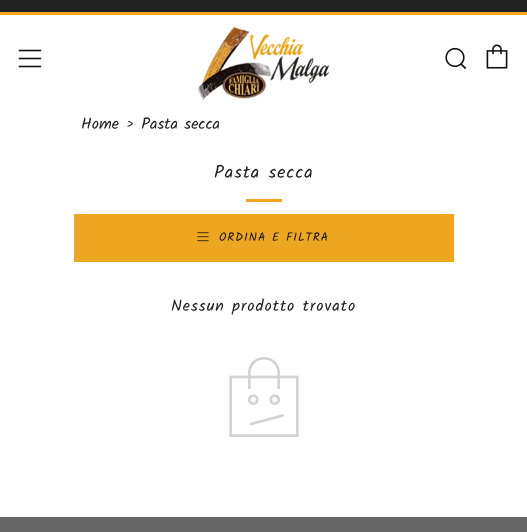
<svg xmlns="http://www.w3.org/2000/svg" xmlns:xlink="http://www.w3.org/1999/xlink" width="527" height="532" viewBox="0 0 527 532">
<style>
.cls-1{font:16px Kalam;fill:#212121}
.cls-2{font:18px Kalam;letter-spacing:1px;fill:#212121}
.cls-3{font:12px Kalam;letter-spacing:1px;fill:#111111}
.cls-4{font:16px Kalam;letter-spacing:1px;fill:#212121}
</style>
<rect width="100%" height="100%" fill="#ffffff"/>
<rect fill="#222222" x="0" y="0" width="527" height="12"/>
<rect fill="#eca61f" x="0" y="12" width="527" height="3"/>
<image xlink:href="image0.png" x="18" y="49" width="24" height="19"/>
<image xlink:href="image1.png" x="198" y="26" width="131" height="75"/>
<image xlink:href="image2.png" x="445" y="47" width="22" height="23"/>
<image xlink:href="image3.png" x="486" y="44" width="22" height="25"/>
<rect fill="#eca61f" x="246" y="199" width="36" height="3"/>
<rect fill="#eca61f" x="74" y="214" width="380" height="48"/>
<image xlink:href="image4.png" x="197" y="232" width="12" height="10"/>
<image xlink:href="image5.png" x="229" y="357" width="70" height="80"/>
<rect fill="#666666" x="0" y="517" width="527" height="15"/>
<text class="cls-1" x="81" y="129">Home › Pasta secca</text>
<text class="cls-2" x="214" y="178">Pasta secca</text>
<text class="cls-3" x="219" y="241">ORDINA E FILTRA</text>
<text class="cls-4" x="171" y="311">Nessun prodotto trovato</text>
</svg>
